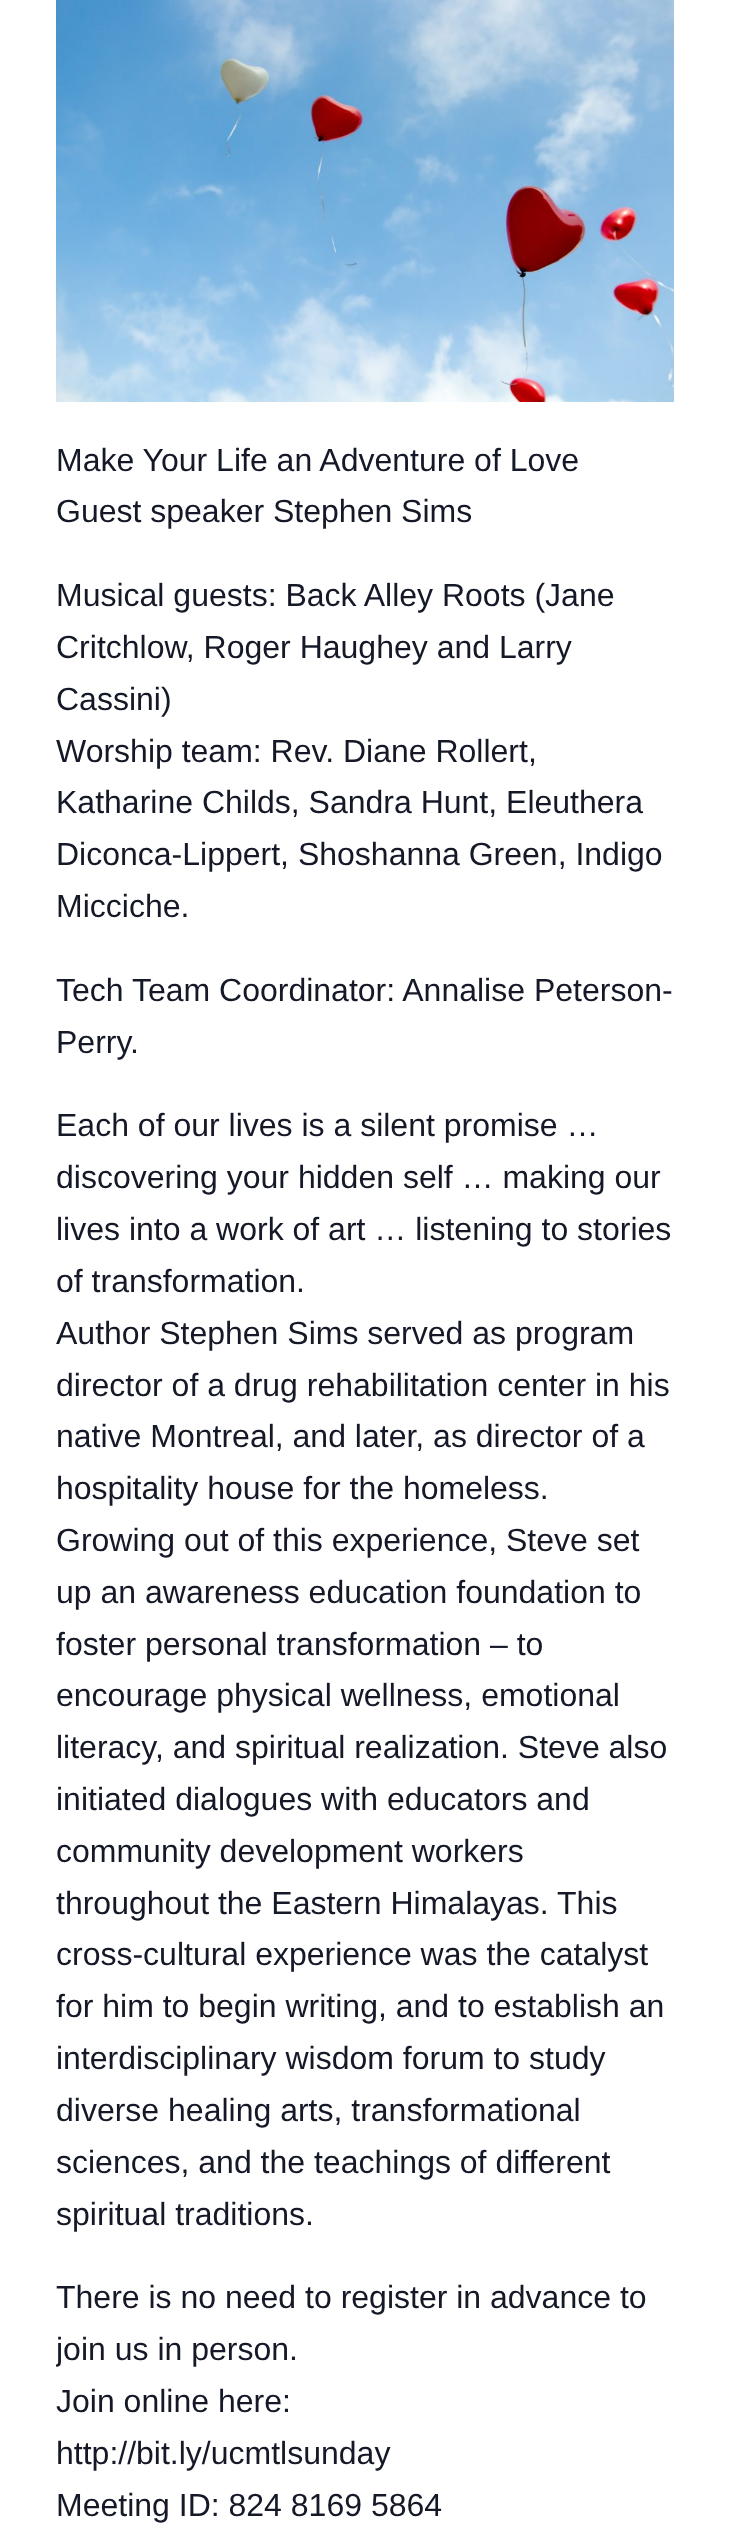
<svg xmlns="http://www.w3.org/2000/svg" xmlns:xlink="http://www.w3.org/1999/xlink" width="730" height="2535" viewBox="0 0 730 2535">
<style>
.cls-1{font:32px Liberation Sans;fill:#141827}
</style>
<defs>
<clipPath id="clip1"><rect x="56" y="0" width="618" height="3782"/></clipPath>
</defs>
<rect width="100%" height="100%" fill="#ffffff"/>
<image xlink:href="image0.png" x="56" y="0" width="618" height="402"/>
<text class="cls-1"><tspan x="56" y="471">Make Your Life an Adventure of Love</tspan><tspan x="56" y="522">Guest speaker Stephen Sims</tspan></text>
<text class="cls-1"><tspan x="56" y="606">Musical guests: Back Alley Roots (Jane</tspan><tspan x="56" y="658">Critchlow, Roger Haughey and Larry</tspan><tspan x="56" y="710">Cassini)</tspan><tspan x="56" y="762">Worship team: Rev. Diane Rollert,</tspan><tspan x="56" y="813">Katharine Childs, Sandra Hunt, Eleuthera</tspan><tspan x="56" y="865">Diconca-Lippert, Shoshanna Green, Indigo</tspan><tspan x="56" y="917">Micciche.</tspan></text>
<text class="cls-1"><tspan x="56" y="1001">Tech Team Coordinator: Annalise Peterson-</tspan><tspan x="56" y="1053">Perry.</tspan></text>
<text class="cls-1"><tspan x="56" y="1136">Each of our lives is a silent promise …</tspan><tspan x="56" y="1188">discovering your hidden self … making our</tspan><tspan x="56" y="1240">lives into a work of art … listening to stories</tspan><tspan x="56" y="1292">of transformation.</tspan><tspan x="56" y="1344">Author Stephen Sims served as program</tspan><tspan x="56" y="1396">director of a drug rehabilitation center in his</tspan><tspan x="56" y="1447">native Montreal, and later, as director of a</tspan><tspan x="56" y="1499">hospitality house for the homeless.</tspan><tspan x="56" y="1551">Growing out of this experience, Steve set</tspan><tspan x="56" y="1603">up an awareness education foundation to</tspan><tspan x="56" y="1655">foster personal transformation – to</tspan><tspan x="56" y="1706">encourage physical wellness, emotional</tspan><tspan x="56" y="1758">literacy, and spiritual realization. Steve also</tspan><tspan x="56" y="1810">initiated dialogues with educators and</tspan><tspan x="56" y="1862">community development workers</tspan><tspan x="56" y="1914">throughout the Eastern Himalayas. This</tspan><tspan x="56" y="1965">cross-cultural experience was the catalyst</tspan><tspan x="56" y="2017">for him to begin writing, and to establish an</tspan><tspan x="56" y="2069">interdisciplinary wisdom forum to study</tspan><tspan x="56" y="2121">diverse healing arts, transformational</tspan><tspan x="56" y="2173">sciences, and the teachings of different</tspan><tspan x="56" y="2225">spiritual traditions.</tspan></text>
<text class="cls-1" x="56" y="2308">There is no need to register in advance to</text>
<g clip-path="url(#clip1)">
<text class="cls-1" x="56" y="2360">join us in person.</text>
</g>
<text class="cls-1"><tspan x="56" y="2412">Join online here:</tspan><tspan x="56" y="2464">http://bit.ly/ucmtlsunday</tspan><tspan x="56" y="2516">Meeting ID: 824 8169 5864</tspan></text>
</svg>
